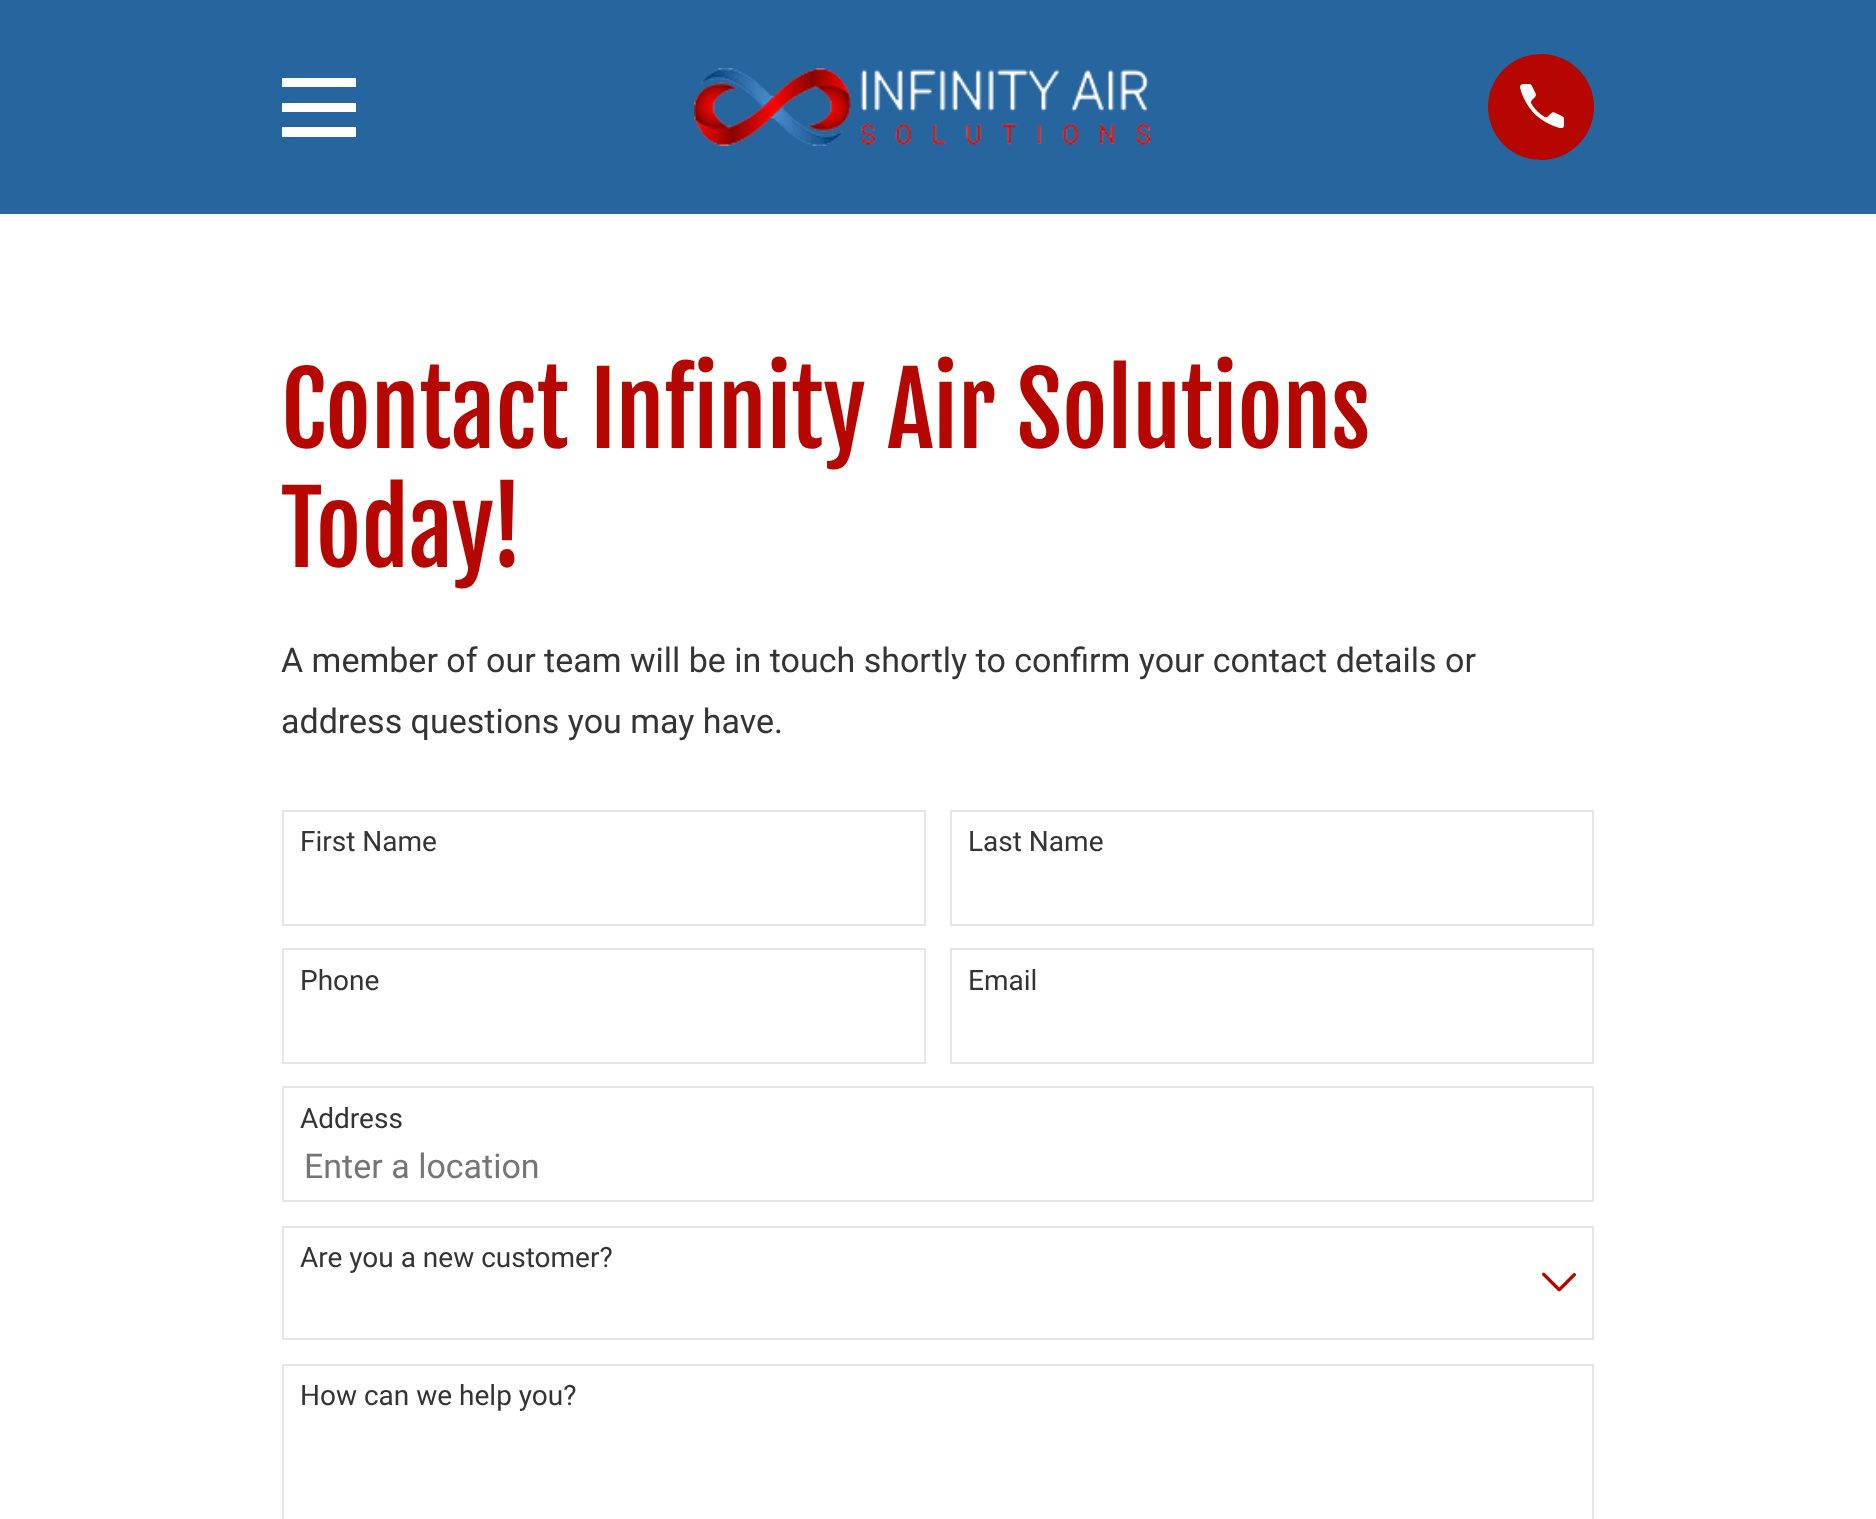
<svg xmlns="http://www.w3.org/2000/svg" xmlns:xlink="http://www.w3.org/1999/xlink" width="1876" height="1519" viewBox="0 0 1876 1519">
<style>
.cls-1{font:98.6px Fjalla One;fill:#b50600}
.cls-2{font:34px Roboto;fill:#343434}
.cls-3{font:28px Roboto;fill:#343434}
.cls-4{font:34px Roboto;fill:#757575}
</style>
<defs>
<clipPath id="clip1"><rect x="282" y="70" width="74" height="74"/></clipPath>
</defs>
<rect width="100%" height="100%" fill="#ffffff"/>
<rect fill="#27659f" x="0" y="0" width="1876" height="214"/>
<g clip-path="url(#clip1)">
<path fill="#ffffff" d="M282 78V87H357V78ZM282 103V112H357V103ZM282 127V137H357V127Z"/>
</g>
<image xlink:href="image0.png" x="694" y="68" width="456" height="78"/>
<circle fill="#b50600" cx="1541" cy="107" r="53"/>
<image xlink:href="image1.png" x="1520" y="84" width="44" height="44"/>
<rect fill="none" stroke="#e6e6e6" stroke-width="2" x="283" y="811" width="642" height="114"/>
<rect fill="none" stroke="#e6e6e6" stroke-width="2" x="951" y="811" width="642" height="114"/>
<rect fill="none" stroke="#e6e6e6" stroke-width="2" x="283" y="949" width="642" height="114"/>
<rect fill="none" stroke="#e6e6e6" stroke-width="2" x="951" y="949" width="642" height="114"/>
<rect fill="none" stroke="#e6e6e6" stroke-width="2" x="283" y="1087" width="1310" height="114"/>
<rect fill="none" stroke="#e6e6e6" stroke-width="2" x="283" y="1227" width="1310" height="112"/>
<image xlink:href="image2.png" x="1542" y="1272" width="34" height="20"/>
<rect fill="none" stroke="#e6e6e6" stroke-width="2" x="283" y="1365" width="1310" height="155"/>
<text class="cls-1"><tspan x="281" y="448">Contact Infinity Air Solutions</tspan><tspan x="281" y="567">Today!</tspan></text>
<text class="cls-2"><tspan x="281" y="672">A member of our team will be in touch shortly to confirm your contact details or</tspan><tspan x="281" y="733">address questions you may have.</tspan></text>
<text class="cls-3" x="300" y="851">First Name</text>
<text class="cls-3" x="968" y="851">Last Name</text>
<text class="cls-3" x="300" y="990">Phone</text>
<text class="cls-3" x="968" y="990">Email</text>
<text class="cls-3" x="300" y="1128">Address</text>
<text class="cls-4" x="304" y="1178">Enter a location</text>
<text class="cls-3" x="300" y="1267">Are you a new customer?</text>
<text class="cls-3" x="300" y="1405">How can we help you?</text>
</svg>
